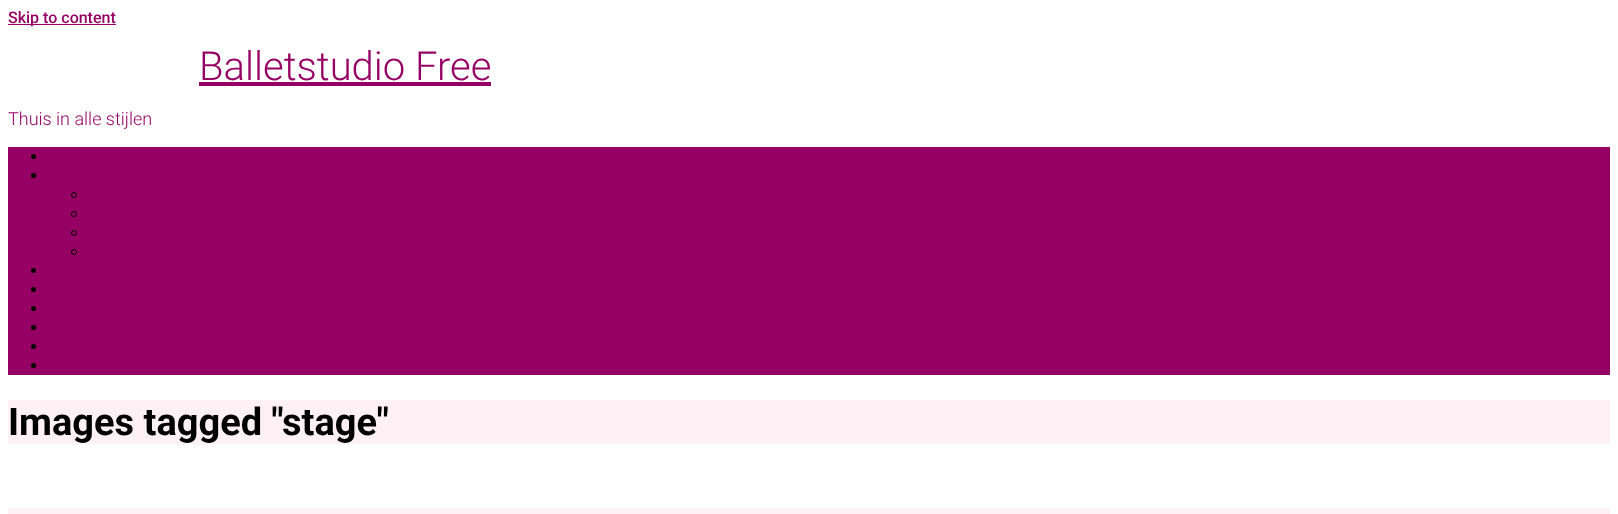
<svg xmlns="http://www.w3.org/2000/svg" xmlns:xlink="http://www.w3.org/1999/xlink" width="1618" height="514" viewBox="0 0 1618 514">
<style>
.cls-1{font:500 16px Roboto;fill:#960064}
.cls-2{font:300 40px Roboto;fill:#960064}
.cls-3{font:300 18px Roboto;fill:#960064}
.cls-4{font:bold 38px Roboto;fill:#000000}
</style>
<rect width="100%" height="100%" fill="#ffffff"/>
<rect fill="#960064" x="8" y="24" width="108" height="1"/>
<rect fill="#960064" x="199" y="82" width="292" height="4"/>
<rect fill="#960064" x="8" y="147" width="1602" height="228"/>
<circle fill="#000000" cx="33.5" cy="156.5" r="2.5"/>
<circle fill="#000000" cx="33.5" cy="175.5" r="2.5"/>
<circle fill="none" stroke="#000000" cx="74" cy="195" r="2.5"/>
<circle fill="none" stroke="#000000" cx="74" cy="214" r="2.5"/>
<circle fill="none" stroke="#000000" cx="74" cy="233" r="2.5"/>
<circle fill="none" stroke="#000000" cx="74" cy="252" r="2.5"/>
<circle fill="#000000" cx="33.5" cy="270.5" r="2.5"/>
<circle fill="#000000" cx="33.5" cy="289.5" r="2.5"/>
<circle fill="#000000" cx="33.5" cy="308.5" r="2.5"/>
<circle fill="#000000" cx="33.5" cy="327.5" r="2.5"/>
<circle fill="#000000" cx="33.5" cy="346.5" r="2.5"/>
<circle fill="#000000" cx="33.5" cy="365.5" r="2.5"/>
<rect fill="#fdf1f5" x="8" y="400" width="1602" height="44"/>
<rect fill="#fdf1f5" x="8" y="508" width="1602" height="6"/>
<text class="cls-1" x="8" y="23">Skip to content</text>
<text class="cls-2" x="199" y="80">Balletstudio Free</text>
<text class="cls-3" x="8" y="125">Thuis in alle stijlen</text>
<text class="cls-4" x="8" y="435">Images tagged "stage"</text>
</svg>
